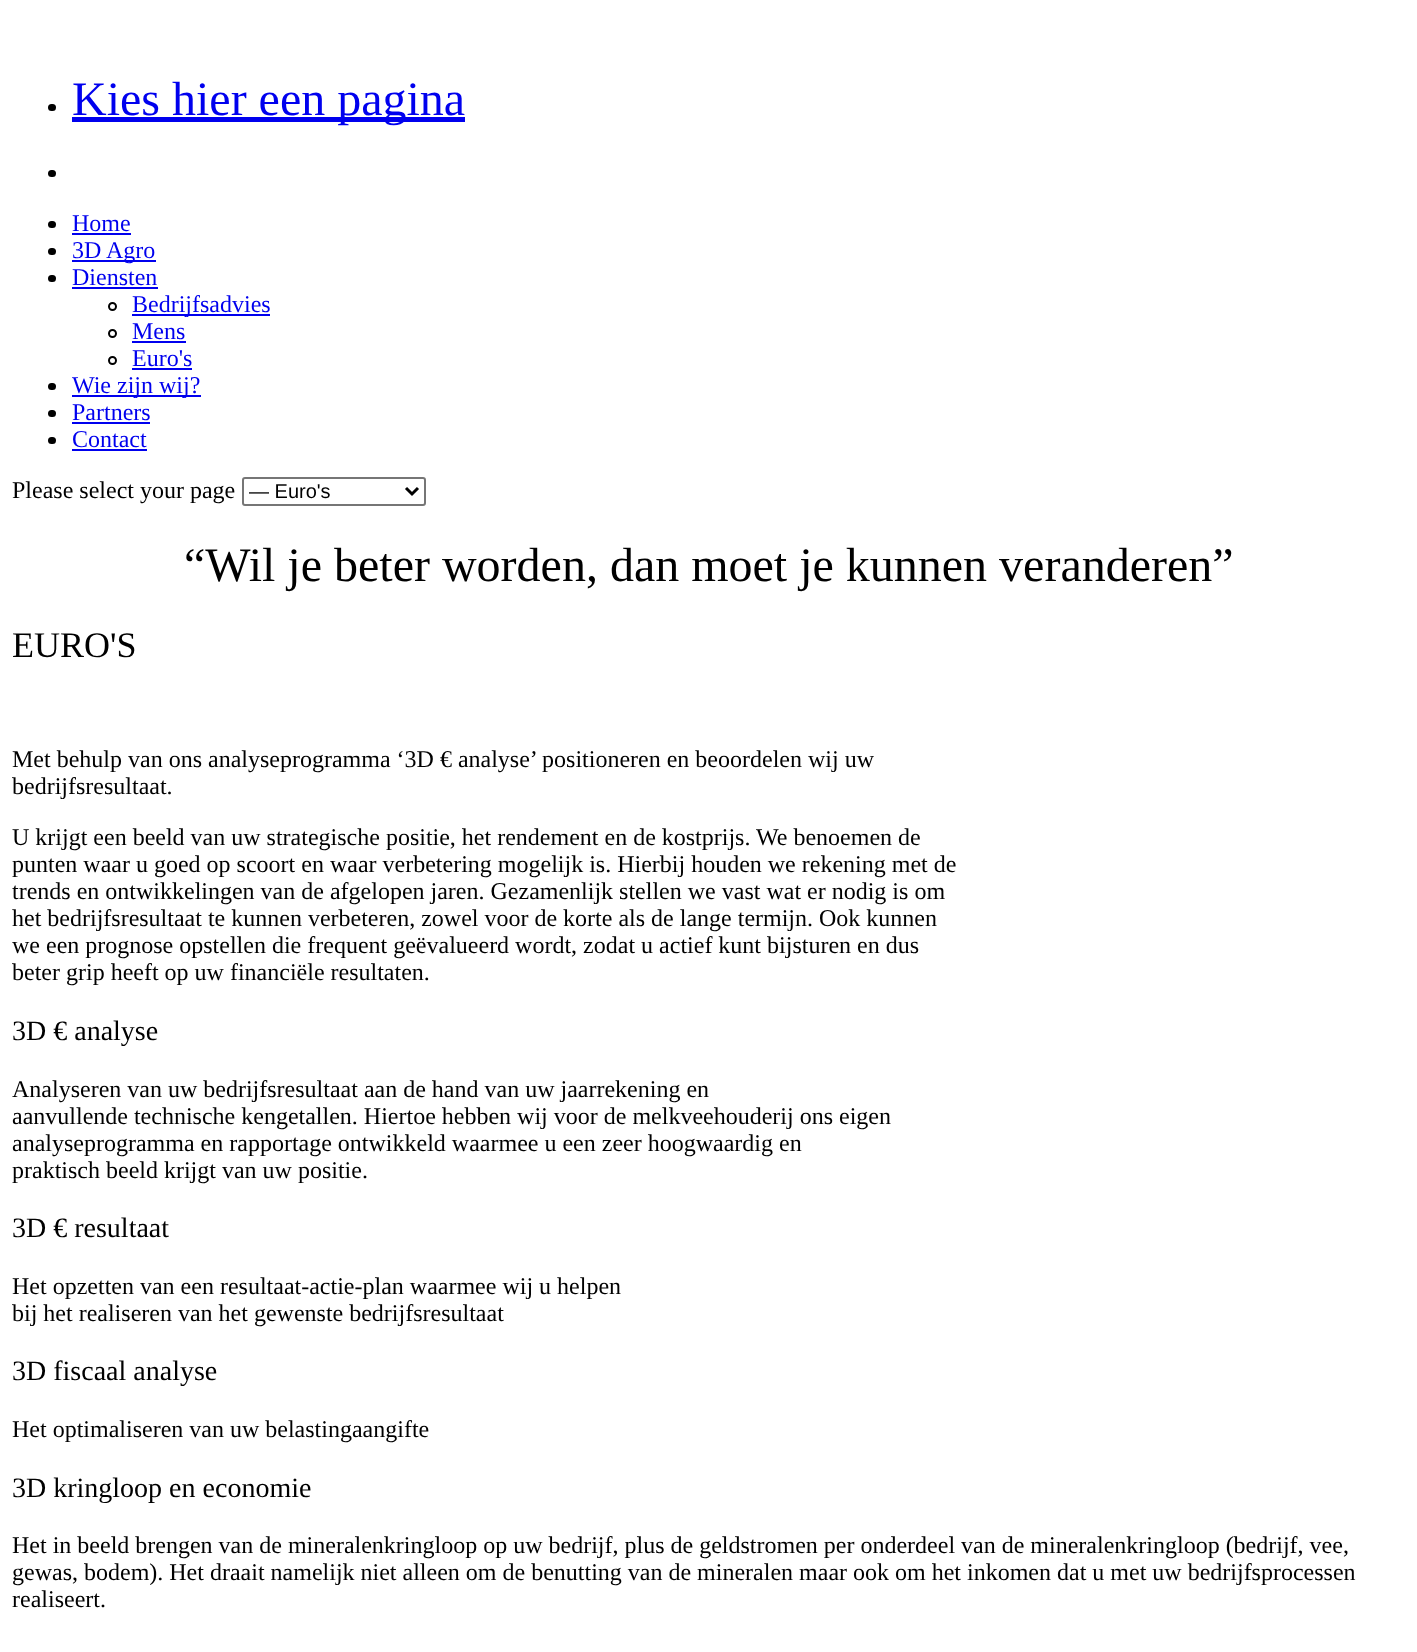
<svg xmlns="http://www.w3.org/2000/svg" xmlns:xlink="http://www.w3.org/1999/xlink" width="1417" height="1652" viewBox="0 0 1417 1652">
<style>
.cls-1{font:48px Liberation Serif;fill:#0000ee}
.cls-2{font:24px Liberation Serif;fill:#0000ee}
.cls-3{font:24px Liberation Serif;fill:#000000}
.cls-4{font:20px Liberation Sans;fill:#000000}
.cls-5{font:48px Liberation Serif;fill:#000000}
.cls-6{font:36px Liberation Serif;fill:#000000}
.cls-7{font:28px Liberation Serif;fill:#000000}
</style>
<rect width="100%" height="100%" fill="#ffffff"/>
<rect fill="#000000" x="48" y="104" width="8" height="7" rx="3.5"/>
<rect fill="#0000ee" x="72" y="117" width="393" height="5"/>
<rect fill="#000000" x="48" y="170" width="8" height="7" rx="3.5"/>
<rect fill="#000000" x="48" y="221" width="8" height="7" rx="3.5"/>
<rect fill="#0000ee" x="72" y="233" width="59" height="2"/>
<rect fill="#000000" x="48" y="248" width="8" height="7" rx="3.5"/>
<rect fill="#0000ee" x="72" y="260" width="84" height="2"/>
<rect fill="#000000" x="48" y="275" width="8" height="7" rx="3.5"/>
<rect fill="#0000ee" x="72" y="287" width="86" height="2"/>
<circle fill="none" stroke="#000000" stroke-width="2" cx="112.5" cy="306.5" r="3.5"/>
<rect fill="#0000ee" x="132" y="314" width="138" height="2"/>
<circle fill="none" stroke="#000000" stroke-width="2" cx="112.5" cy="333.5" r="3.5"/>
<rect fill="#0000ee" x="132" y="341" width="54" height="2"/>
<circle fill="none" stroke="#000000" stroke-width="2" cx="112.5" cy="360.5" r="3.5"/>
<rect fill="#0000ee" x="132" y="368" width="60" height="2"/>
<rect fill="#000000" x="48" y="383" width="8" height="7" rx="3.5"/>
<rect fill="#0000ee" x="72" y="395" width="129" height="2"/>
<rect fill="#000000" x="48" y="410" width="8" height="7" rx="3.5"/>
<rect fill="#0000ee" x="72" y="422" width="78" height="2"/>
<rect fill="#000000" x="48" y="437" width="8" height="7" rx="3.5"/>
<rect fill="#0000ee" x="72" y="449" width="75" height="2"/>
<rect fill="none" stroke="#767676" stroke-width="2" x="243" y="478" width="182" height="27" rx="2"/>
<path fill="none" stroke="#000000" stroke-width="3" d="M406 488L412 494L418 488"/>
<text class="cls-1" x="72" y="115">Kies hier een pagina</text>
<text class="cls-2"><tspan x="72" y="231">Home</tspan><tspan x="72" y="258">3D Agro</tspan><tspan x="72" y="285">Diensten</tspan></text>
<text class="cls-2"><tspan x="132" y="312">Bedrijfsadvies</tspan><tspan x="132" y="339">Mens</tspan><tspan x="132" y="366">Euro's</tspan></text>
<text class="cls-2"><tspan x="72" y="393">Wie zijn wij?</tspan><tspan x="72" y="420">Partners</tspan><tspan x="72" y="447">Contact</tspan></text>
<text class="cls-3" x="12" y="498">Please select your page</text>
<text class="cls-4" x="249" y="498">— Euro's</text>
<text class="cls-5" x="184" y="581">“Wil je beter worden, dan moet je kunnen veranderen”</text>
<text class="cls-6" x="12" y="657">EURO'S</text>
<text class="cls-3"><tspan x="12" y="767">Met behulp van ons analyseprogramma ‘3D € analyse’ positioneren en beoordelen wij uw</tspan><tspan x="12" y="794">bedrijfsresultaat.</tspan></text>
<text class="cls-3"><tspan x="12" y="845">U krijgt een beeld van uw strategische positie, het rendement en de kostprijs. We benoemen de</tspan><tspan x="12" y="872">punten waar u goed op scoort en waar verbetering mogelijk is. Hierbij houden we rekening met de</tspan><tspan x="12" y="899">trends en ontwikkelingen van de afgelopen jaren. Gezamenlijk stellen we vast wat er nodig is om</tspan><tspan x="12" y="926">het bedrijfsresultaat te kunnen verbeteren, zowel voor de korte als de lange termijn. Ook kunnen</tspan><tspan x="12" y="953">we een prognose opstellen die frequent geëvalueerd wordt, zodat u actief kunt bijsturen en dus</tspan><tspan x="12" y="980">beter grip heeft op uw financiële resultaten.</tspan></text>
<text class="cls-7" x="12" y="1040">3D € analyse</text>
<text class="cls-3"><tspan x="12" y="1097">Analyseren van uw bedrijfsresultaat aan de hand van uw jaarrekening en</tspan><tspan x="12" y="1124">aanvullende technische kengetallen. Hiertoe hebben wij voor de melkveehouderij ons eigen</tspan><tspan x="12" y="1151">analyseprogramma en rapportage ontwikkeld waarmee u een zeer hoogwaardig en</tspan><tspan x="12" y="1178">praktisch beeld krijgt van uw positie.</tspan></text>
<text class="cls-7" x="12" y="1237">3D € resultaat</text>
<text class="cls-3"><tspan x="12" y="1294">Het opzetten van een resultaat-actie-plan waarmee wij u helpen</tspan><tspan x="12" y="1321">bij het realiseren van het gewenste bedrijfsresultaat</tspan></text>
<text class="cls-7" x="12" y="1380">3D fiscaal analyse</text>
<text class="cls-3" x="12" y="1437">Het optimaliseren van uw belastingaangifte</text>
<text class="cls-7" x="12" y="1497">3D kringloop en economie</text>
<text class="cls-3"><tspan x="12" y="1553">Het in beeld brengen van de mineralenkringloop op uw bedrijf, plus de geldstromen per onderdeel van de mineralenkringloop (bedrijf, vee,</tspan><tspan x="12" y="1580">gewas, bodem). Het draait namelijk niet alleen om de benutting van de mineralen maar ook om het inkomen dat u met uw bedrijfsprocessen</tspan><tspan x="12" y="1607">realiseert.</tspan></text>
</svg>
